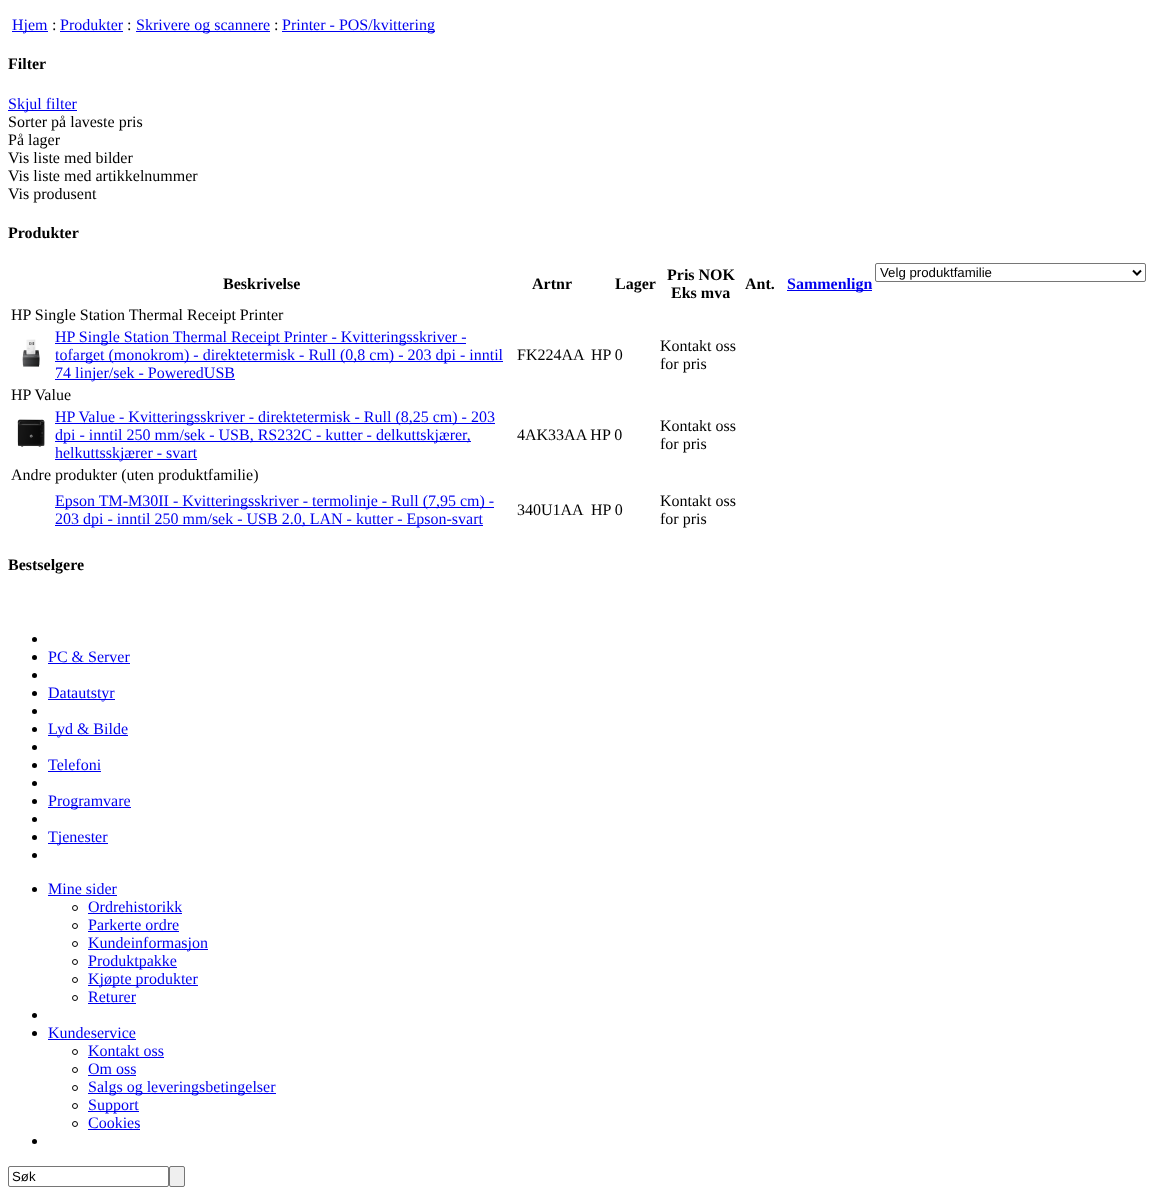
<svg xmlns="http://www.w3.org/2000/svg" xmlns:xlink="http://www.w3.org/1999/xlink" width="1154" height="1187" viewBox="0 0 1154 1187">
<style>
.cls-1{font:16px Liberation Serif;fill:#0000ee}
.cls-2{font:16px Liberation Serif;fill:#000000}
.cls-3{font:bold 16px Liberation Serif;fill:#000000}
.cls-4{font:13.25px Liberation Sans;fill:#000000}
.cls-5{font:bold 16px Liberation Serif;fill:#0000ee}
</style>
<rect width="100%" height="100%" fill="#ffffff"/>
<rect fill="#0000ee" x="12" y="31" width="36" height="1"/>
<rect fill="#0000ee" x="60" y="31" width="63" height="1"/>
<rect fill="#0000ee" x="136" y="31" width="134" height="1"/>
<rect fill="#0000ee" x="282" y="31" width="153" height="1"/>
<rect fill="#0000ee" x="8" y="110" width="69" height="1"/>
<rect fill="none" stroke="#767676" x="875.5" y="263.5" width="270" height="18" rx="1.5"/>
<path fill="none" stroke="#000000" stroke-width="2" d="M1133 270.5L1137 274.5L1141 270.5"/>
<rect fill="#0000ee" x="787" y="290" width="85" height="1"/>
<image xlink:href="image0.png" x="22" y="339" width="18" height="28"/>
<rect fill="#0000ee" x="55" y="343" width="411" height="1"/>
<rect fill="#0000ee" x="55" y="361" width="448" height="1"/>
<rect fill="#0000ee" x="55" y="379" width="180" height="1"/>
<image xlink:href="image1.png" x="17" y="419" width="28" height="28"/>
<rect fill="#0000ee" x="55" y="423" width="440" height="1"/>
<rect fill="#0000ee" x="55" y="441" width="416" height="1"/>
<rect fill="#0000ee" x="55" y="459" width="142" height="1"/>
<rect fill="#0000ee" x="55" y="507" width="439" height="1"/>
<rect fill="#0000ee" x="55" y="525" width="428" height="1"/>
<circle fill="#000000" cx="34.5" cy="639.5" r="2.5"/>
<circle fill="#000000" cx="34.5" cy="657.5" r="2.5"/>
<rect fill="#0000ee" x="48" y="663" width="82" height="1"/>
<circle fill="#000000" cx="34.5" cy="675.5" r="2.5"/>
<circle fill="#000000" cx="34.5" cy="693.5" r="2.5"/>
<rect fill="#0000ee" x="48" y="699" width="67" height="1"/>
<circle fill="#000000" cx="34.5" cy="711.5" r="2.5"/>
<circle fill="#000000" cx="34.5" cy="729.5" r="2.5"/>
<rect fill="#0000ee" x="48" y="735" width="80" height="1"/>
<circle fill="#000000" cx="34.5" cy="747.5" r="2.5"/>
<circle fill="#000000" cx="34.5" cy="765.5" r="2.5"/>
<rect fill="#0000ee" x="48" y="771" width="53" height="1"/>
<circle fill="#000000" cx="34.5" cy="783.5" r="2.5"/>
<circle fill="#000000" cx="34.5" cy="801.5" r="2.5"/>
<rect fill="#0000ee" x="48" y="807" width="83" height="1"/>
<circle fill="#000000" cx="34.5" cy="819.5" r="2.5"/>
<circle fill="#000000" cx="34.5" cy="837.5" r="2.5"/>
<rect fill="#0000ee" x="48" y="843" width="60" height="1"/>
<circle fill="#000000" cx="34.5" cy="855.5" r="2.5"/>
<circle fill="#000000" cx="34.5" cy="889.5" r="2.5"/>
<rect fill="#0000ee" x="48" y="895" width="69" height="1"/>
<circle fill="none" stroke="#000000" cx="75" cy="908" r="2.5"/>
<rect fill="#0000ee" x="88" y="913" width="94" height="1"/>
<circle fill="none" stroke="#000000" cx="75" cy="926" r="2.5"/>
<rect fill="#0000ee" x="88" y="931" width="91" height="1"/>
<circle fill="none" stroke="#000000" cx="75" cy="944" r="2.5"/>
<rect fill="#0000ee" x="88" y="949" width="120" height="1"/>
<circle fill="none" stroke="#000000" cx="75" cy="962" r="2.5"/>
<rect fill="#0000ee" x="88" y="967" width="89" height="1"/>
<circle fill="none" stroke="#000000" cx="75" cy="980" r="2.5"/>
<rect fill="#0000ee" x="88" y="985" width="110" height="1"/>
<circle fill="none" stroke="#000000" cx="75" cy="998" r="2.5"/>
<rect fill="#0000ee" x="88" y="1003" width="48" height="1"/>
<circle fill="#000000" cx="34.5" cy="1015.5" r="2.5"/>
<circle fill="#000000" cx="34.5" cy="1033.5" r="2.5"/>
<rect fill="#0000ee" x="48" y="1039" width="88" height="1"/>
<circle fill="none" stroke="#000000" cx="75" cy="1052" r="2.5"/>
<rect fill="#0000ee" x="88" y="1057" width="76" height="1"/>
<circle fill="none" stroke="#000000" cx="75" cy="1070" r="2.5"/>
<rect fill="#0000ee" x="88" y="1075" width="48" height="1"/>
<circle fill="none" stroke="#000000" cx="75" cy="1088" r="2.5"/>
<rect fill="#0000ee" x="88" y="1093" width="188" height="1"/>
<circle fill="none" stroke="#000000" cx="75" cy="1106" r="2.5"/>
<rect fill="#0000ee" x="88" y="1111" width="51" height="1"/>
<circle fill="none" stroke="#000000" cx="75" cy="1124" r="2.5"/>
<rect fill="#0000ee" x="88" y="1129" width="52" height="1"/>
<circle fill="#000000" cx="34.5" cy="1141.5" r="2.5"/>
<rect fill="none" stroke="#767676" x="8.5" y="1166.5" width="160" height="20" rx="1.5"/>
<rect fill="#efefef" stroke="#767676" x="169.5" y="1166.5" width="15" height="20" rx="1.5"/>
<text class="cls-1" x="12" y="30">Hjem</text>
<text class="cls-2" x="52" y="30">:</text>
<text class="cls-1" x="60" y="30">Produkter</text>
<text class="cls-2" x="127" y="30">:</text>
<text class="cls-1" x="136" y="30">Skrivere og scannere</text>
<text class="cls-2" x="274" y="30">:</text>
<text class="cls-1" x="282" y="30">Printer - POS/kvittering</text>
<text class="cls-3" x="8" y="69">Filter</text>
<text class="cls-1" x="8" y="109">Skjul filter</text>
<text class="cls-2"><tspan x="8" y="127">Sorter på laveste pris</tspan><tspan x="8" y="145">På lager</tspan><tspan x="8" y="163">Vis liste med bilder</tspan><tspan x="8" y="181">Vis liste med artikkelnummer</tspan><tspan x="8" y="199">Vis produsent</tspan></text>
<text class="cls-3" x="8" y="238">Produkter</text>
<text class="cls-4" x="880" y="277">Velg produktfamilie</text>
<text class="cls-3" x="223" y="289">Beskrivelse</text>
<text class="cls-3" x="532" y="289">Artnr</text>
<text class="cls-3" x="615" y="289">Lager</text>
<text class="cls-3" x="667" y="280">Pris NOK</text>
<text class="cls-3" x="671" y="298">Eks mva</text>
<text class="cls-3" x="745" y="289">Ant.</text>
<text class="cls-5" x="787" y="289">Sammenlign</text>
<text class="cls-2" x="11" y="320">HP Single Station Thermal Receipt Printer</text>
<text class="cls-1"><tspan x="55" y="342">HP Single Station Thermal Receipt Printer - Kvitteringsskriver -</tspan><tspan x="55" y="360">tofarget (monokrom) - direktetermisk - Rull (0,8 cm) - 203 dpi - inntil</tspan><tspan x="55" y="378">74 linjer/sek - PoweredUSB</tspan></text>
<text class="cls-2" x="517" y="360">FK224AA</text>
<text class="cls-2" x="591" y="360">HP 0</text>
<text class="cls-2"><tspan x="660" y="351">Kontakt oss</tspan><tspan x="660" y="369">for pris</tspan></text>
<text class="cls-2" x="11" y="400">HP Value</text>
<text class="cls-1"><tspan x="55" y="422">HP Value - Kvitteringsskriver - direktetermisk - Rull (8,25 cm) - 203</tspan><tspan x="55" y="440">dpi - inntil 250 mm/sek - USB, RS232C - kutter - delkuttskjærer,</tspan><tspan x="55" y="458">helkuttsskjærer - svart</tspan></text>
<text class="cls-2" x="517" y="440">4AK33AA HP 0</text>
<text class="cls-2"><tspan x="660" y="431">Kontakt oss</tspan><tspan x="660" y="449">for pris</tspan></text>
<text class="cls-2" x="11" y="480">Andre produkter (uten produktfamilie)</text>
<text class="cls-1"><tspan x="55" y="506">Epson TM-M30II - Kvitteringsskriver - termolinje - Rull (7,95 cm) -</tspan><tspan x="55" y="524">203 dpi - inntil 250 mm/sek - USB 2.0, LAN - kutter - Epson-svart</tspan></text>
<text class="cls-2" x="517" y="515">340U1AA</text>
<text class="cls-2" x="591" y="515">HP 0</text>
<text class="cls-2"><tspan x="660" y="506">Kontakt oss</tspan><tspan x="660" y="524">for pris</tspan></text>
<text class="cls-3" x="8" y="570">Bestselgere</text>
<text class="cls-1" x="48" y="662">PC &amp; Server</text>
<text class="cls-1" x="48" y="698">Datautstyr</text>
<text class="cls-1" x="48" y="734">Lyd &amp; Bilde</text>
<text class="cls-1" x="48" y="770">Telefoni</text>
<text class="cls-1" x="48" y="806">Programvare</text>
<text class="cls-1" x="48" y="842">Tjenester</text>
<text class="cls-1" x="48" y="894">Mine sider</text>
<text class="cls-1"><tspan x="88" y="912">Ordrehistorikk</tspan><tspan x="88" y="930">Parkerte ordre</tspan><tspan x="88" y="948">Kundeinformasjon</tspan><tspan x="88" y="966">Produktpakke</tspan><tspan x="88" y="984">Kjøpte produkter</tspan><tspan x="88" y="1002">Returer</tspan></text>
<text class="cls-1" x="48" y="1038">Kundeservice</text>
<text class="cls-1"><tspan x="88" y="1056">Kontakt oss</tspan><tspan x="88" y="1074">Om oss</tspan><tspan x="88" y="1092">Salgs og leveringsbetingelser</tspan><tspan x="88" y="1110">Support</tspan><tspan x="88" y="1128">Cookies</tspan></text>
<text class="cls-4" x="12" y="1181">Søk</text>
</svg>
